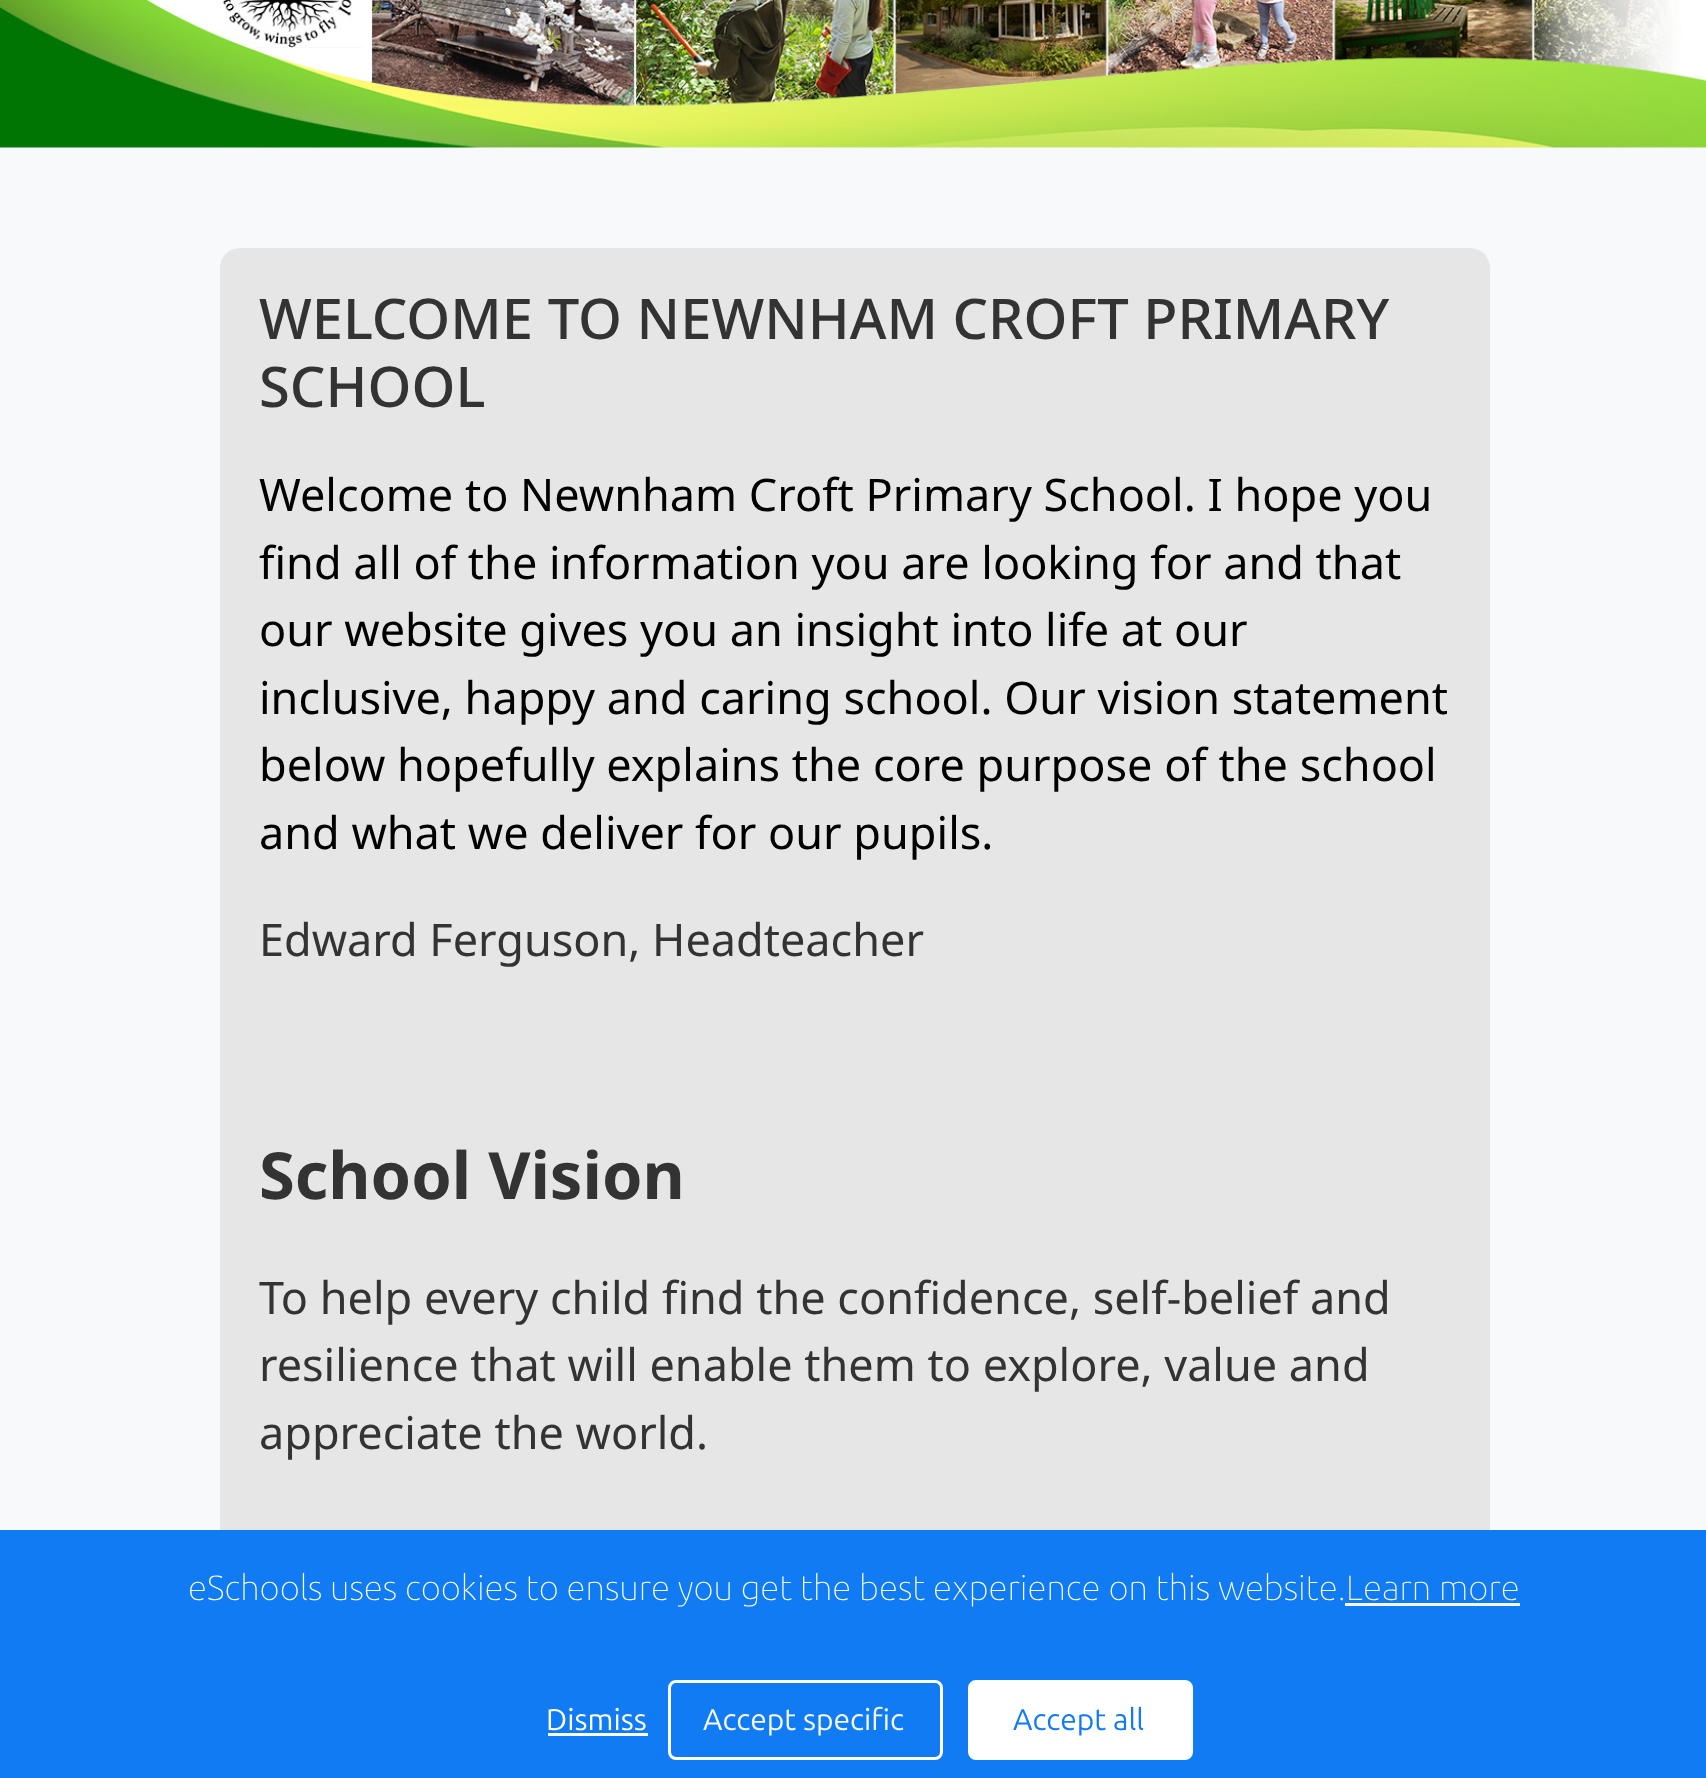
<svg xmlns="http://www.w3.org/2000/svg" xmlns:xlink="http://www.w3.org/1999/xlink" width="1706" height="1778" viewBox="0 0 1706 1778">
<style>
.cls-1{font:500 56.1px Noto Sans;fill:#333333}
.cls-2{font:45px Noto Sans;fill:#000000}
.cls-3{font:45px Noto Sans;fill:#333333}
.cls-4{font:bold 65px Noto Sans;fill:#333333}
.cls-5{font:100 35px Ubuntu;fill:#ffffff}
.cls-6{font:100 35px Ubuntu;fill:#f7f7f7}
.cls-7{font:30px Ubuntu;fill:#ffffff}
.cls-8{font:30px Ubuntu;fill:#f7f7f7}
.cls-9{font:30px Ubuntu;fill:#117bf3}
</style>
<rect width="100%" height="100%" fill="#f8f9fa"/>
<image xlink:href="image0.png" x="0" y="0" width="1706" height="148"/>
<rect fill="#e6e6e6" x="220" y="248" width="1270" height="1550" rx="20"/>
<rect fill="#117bf3" x="0" y="1530" width="1706" height="248"/>
<rect fill="#f7f7f7" x="1345" y="1603" width="175" height="3"/>
<rect fill="#ffffff" x="548" y="1733" width="100" height="3"/>
<rect fill="none" stroke="#ffffff" stroke-width="3" x="669.5" y="1681.5" width="272" height="77" rx="6.5"/>
<rect fill="#ffffff" stroke="#ffffff" stroke-width="3" x="969.5" y="1681.5" width="222" height="77" rx="6.5"/>
<text class="cls-1"><tspan x="259" y="339">WELCOME TO NEWNHAM CROFT PRIMARY</tspan><tspan x="259" y="407">SCHOOL</tspan></text>
<text class="cls-2"><tspan x="259" y="511">Welcome to Newnham Croft Primary School. I hope you</tspan><tspan x="259" y="579">find all of the information you are looking for and that</tspan><tspan x="259" y="646">our website gives you an insight into life at our</tspan><tspan x="259" y="714">inclusive, happy and caring school. Our vision statement</tspan><tspan x="259" y="781">below hopefully explains the core purpose of the school</tspan><tspan x="259" y="849">and what we deliver for our pupils.</tspan></text>
<text class="cls-3" x="259" y="956">Edward Ferguson, Headteacher</text>
<text class="cls-4" x="259" y="1199">School Vision</text>
<text class="cls-3"><tspan x="259" y="1314">To help every child find the confidence, self-belief and</tspan><tspan x="259" y="1381">resilience that will enable them to explore, value and</tspan><tspan x="259" y="1449">appreciate the world.</tspan></text>
<text class="cls-5" x="188" y="1600">eSchools uses cookies to ensure you get the best experience on this website.</text>
<text class="cls-6" x="1346" y="1600">Learn more</text>
<text class="cls-7" x="546" y="1730">Dismiss</text>
<text class="cls-8" x="703" y="1730">Accept specific</text>
<text class="cls-9" x="1013" y="1730">Accept all</text>
</svg>
